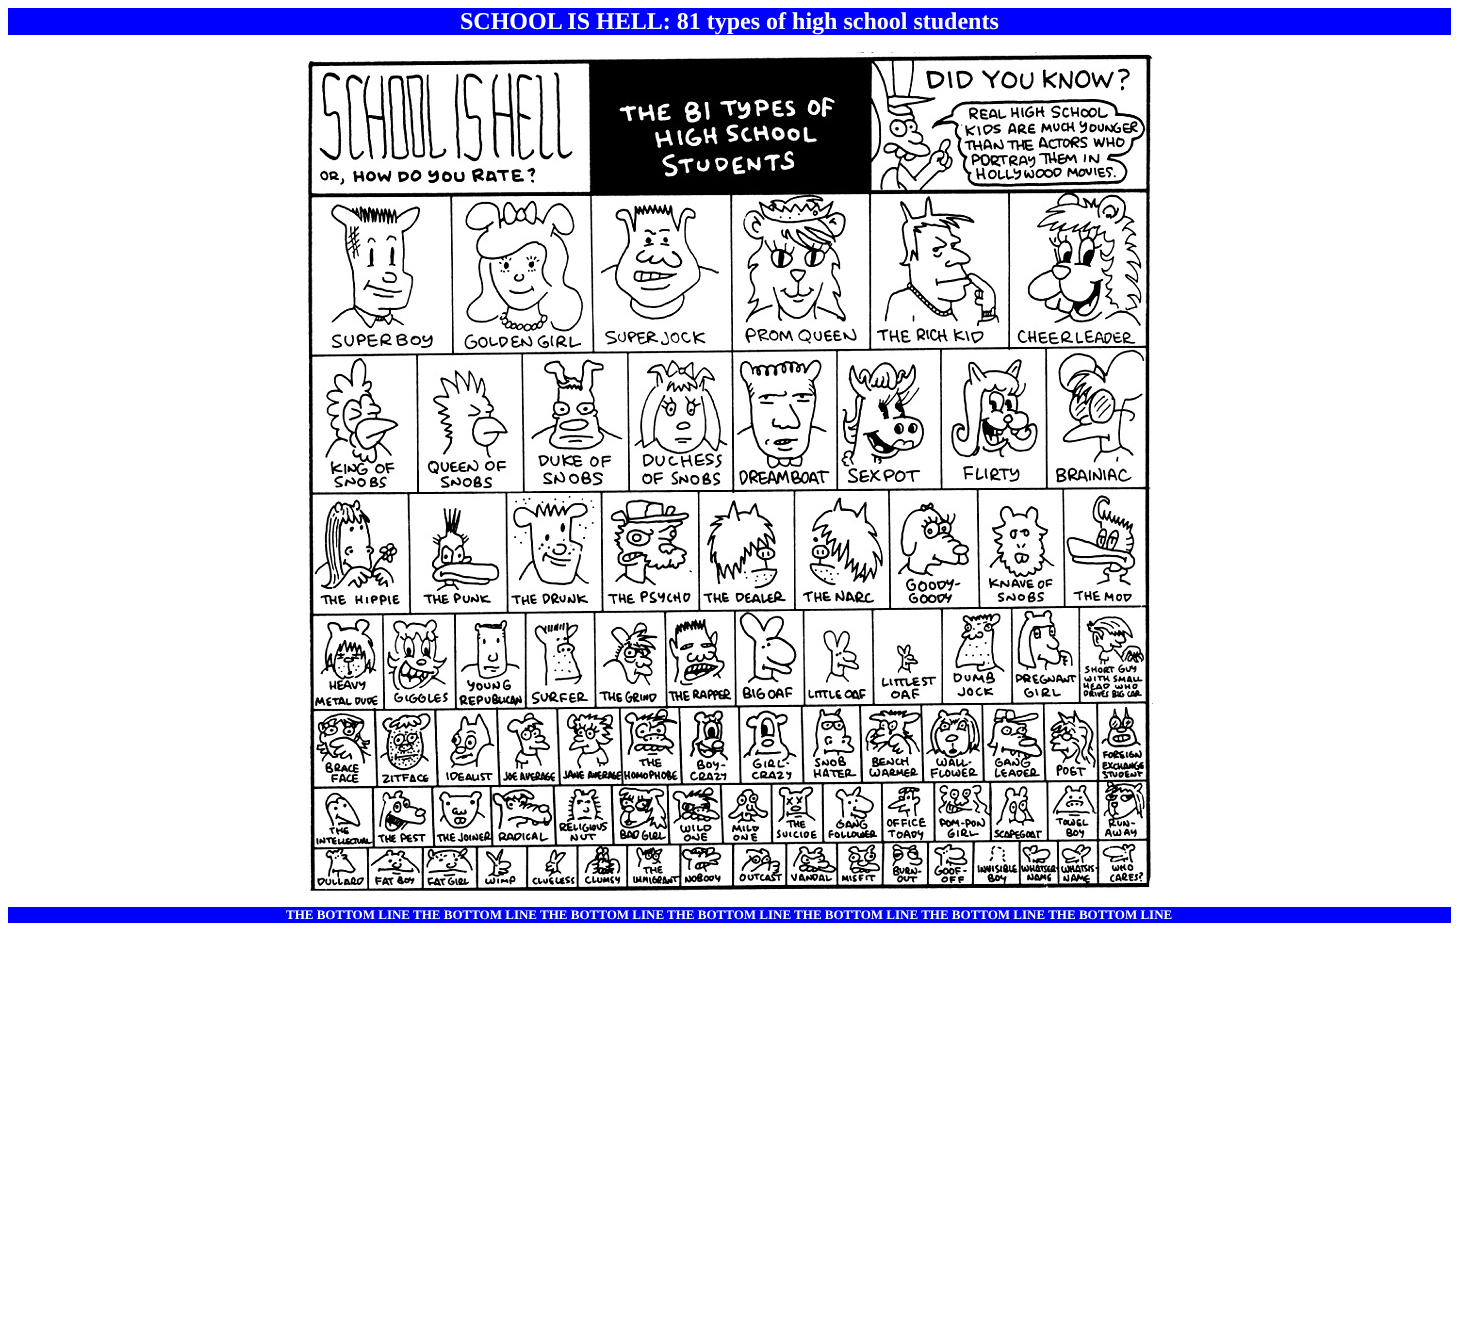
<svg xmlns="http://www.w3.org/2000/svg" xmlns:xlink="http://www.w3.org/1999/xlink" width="1459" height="1324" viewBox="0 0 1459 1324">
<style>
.cls-1{font:bold 24px Liberation Serif;fill:#ffffff}
.cls-2{font:bold 13px Liberation Serif;fill:#ffffff}
</style>
<rect width="100%" height="100%" fill="#ffffff"/>
<rect fill="#0000ff" x="8" y="8" width="1443" height="27"/>
<image xlink:href="image0.png" x="305" y="51" width="848" height="840"/>
<rect fill="#0000ff" x="8" y="907" width="1443" height="16"/>
<text class="cls-1" x="460" y="29">SCHOOL IS HELL: 81 types of high school students</text>
<text class="cls-2" x="286" y="919">THE BOTTOM LINE THE BOTTOM LINE THE BOTTOM LINE THE BOTTOM LINE THE BOTTOM LINE THE BOTTOM LINE THE BOTTOM LINE</text>
</svg>
